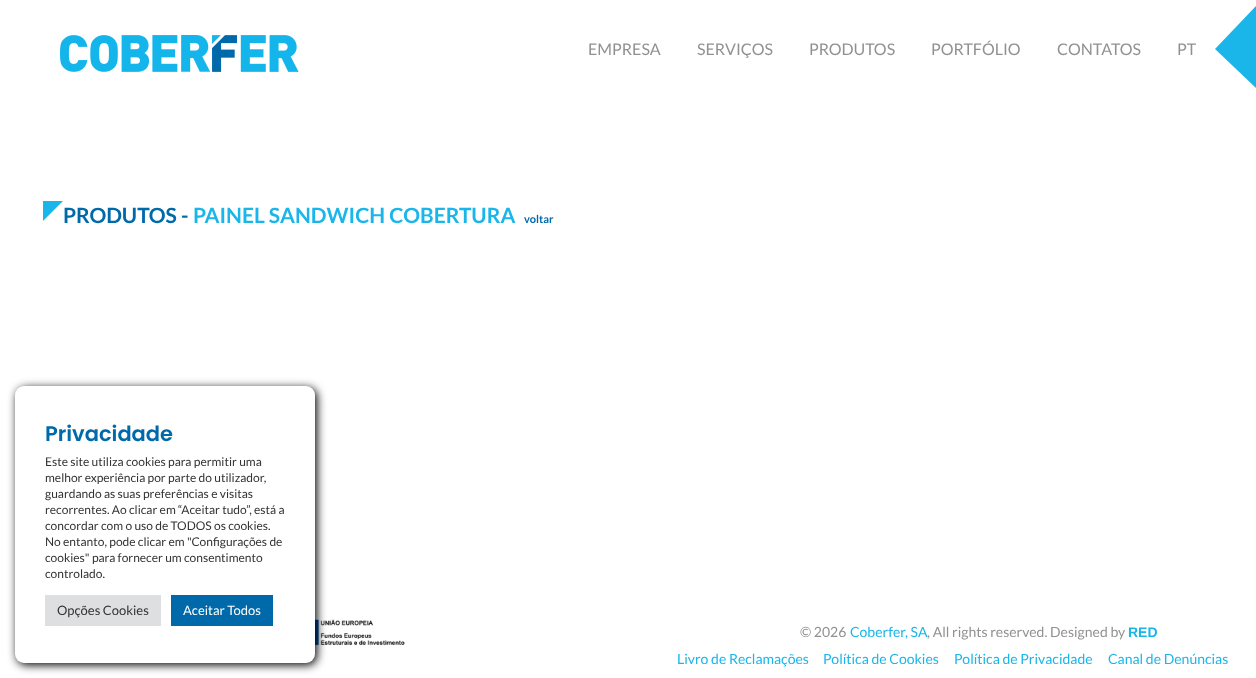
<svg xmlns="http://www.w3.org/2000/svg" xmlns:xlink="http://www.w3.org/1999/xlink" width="1256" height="678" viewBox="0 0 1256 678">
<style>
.cls-1{font:16px Lato;fill:#919191}
.cls-2{font:bold 21px Lato;fill:#0069aa}
.cls-3{font:bold 21px Lato;fill:#1ab6ea}
.cls-4{font:bold 11px Lato;fill:#0069aa}
.cls-5{font:14px Lato;fill:#919191}
.cls-6{font:14px Lato;fill:#1ab6ea}
.cls-7{font:bold 14px Liberation Sans;fill:#1ab6ea}
.cls-8{font:600 21px Poppins;fill:#0069aa}
.cls-9{font:12px Lato;fill:#333333}
.cls-10{font:13px Lato;fill:#333333}
.cls-11{font:13px Lato;fill:#ffffff}
</style>
<rect width="100%" height="100%" fill="#ffffff"/>
<image xlink:href="image0.png" x="60" y="35" width="239" height="37"/>
<path fill="#1ab6ea" d="M1256 6V88L1215 49Z"/>
<path fill="#1ab6ea" d="M43 201H63L43 221Z"/>
<image xlink:href="image1.png" x="315" y="619" width="90" height="27"/>
<rect fill="#000000" filter="blur(5px)" x="17" y="388" width="300" height="277" rx="9"/>
<rect fill="#ffffff" x="15" y="386" width="300" height="277" rx="9"/>
<rect fill="#dedfe0" x="45" y="595" width="116" height="31"/>
<rect fill="#0069aa" x="171" y="595" width="102" height="31"/>
<text class="cls-1" x="588" y="55">EMPRESA</text>
<text class="cls-1" x="697" y="55">SERVIÇOS</text>
<text class="cls-1" x="809" y="55">PRODUTOS</text>
<text class="cls-1" x="931" y="55">PORTFÓLIO</text>
<text class="cls-1" x="1057" y="55">CONTATOS</text>
<text class="cls-1" x="1177" y="55">PT</text>
<text class="cls-2" x="63" y="223">PRODUTOS -</text>
<text class="cls-3" x="193" y="223">PAINEL SANDWICH COBERTURA</text>
<text class="cls-4" x="524" y="223">voltar</text>
<text class="cls-5" x="800" y="637">© 2026</text>
<text class="cls-6" x="850" y="637">Coberfer, SA</text>
<text class="cls-5" x="927" y="637">, All rights reserved. Designed by</text>
<text class="cls-7" x="1128" y="637">RED</text>
<text class="cls-6" x="677" y="664">Livro de Reclamações</text>
<text class="cls-6" x="823" y="664">Política de Cookies</text>
<text class="cls-6" x="954" y="664">Política de Privacidade</text>
<text class="cls-6" x="1108" y="664">Canal de Denúncias</text>
<text class="cls-8" x="45" y="441">Privacidade</text>
<text class="cls-9"><tspan x="45" y="466">Este site utiliza cookies para permitir uma</tspan><tspan x="45" y="482">melhor experiência por parte do utilizador,</tspan><tspan x="45" y="498">guardando as suas preferências e visitas</tspan><tspan x="45" y="514">recorrentes. Ao clicar em “Aceitar tudo”, está a</tspan><tspan x="45" y="530">concordar com o uso de TODOS os cookies.</tspan><tspan x="45" y="546">No entanto, pode clicar em "Configurações de</tspan><tspan x="45" y="562">cookies" para fornecer um consentimento</tspan><tspan x="45" y="578">controlado.</tspan></text>
<text class="cls-10" x="57" y="615">Opções Cookies</text>
<text class="cls-11" x="183" y="615">Aceitar Todos</text>
</svg>
